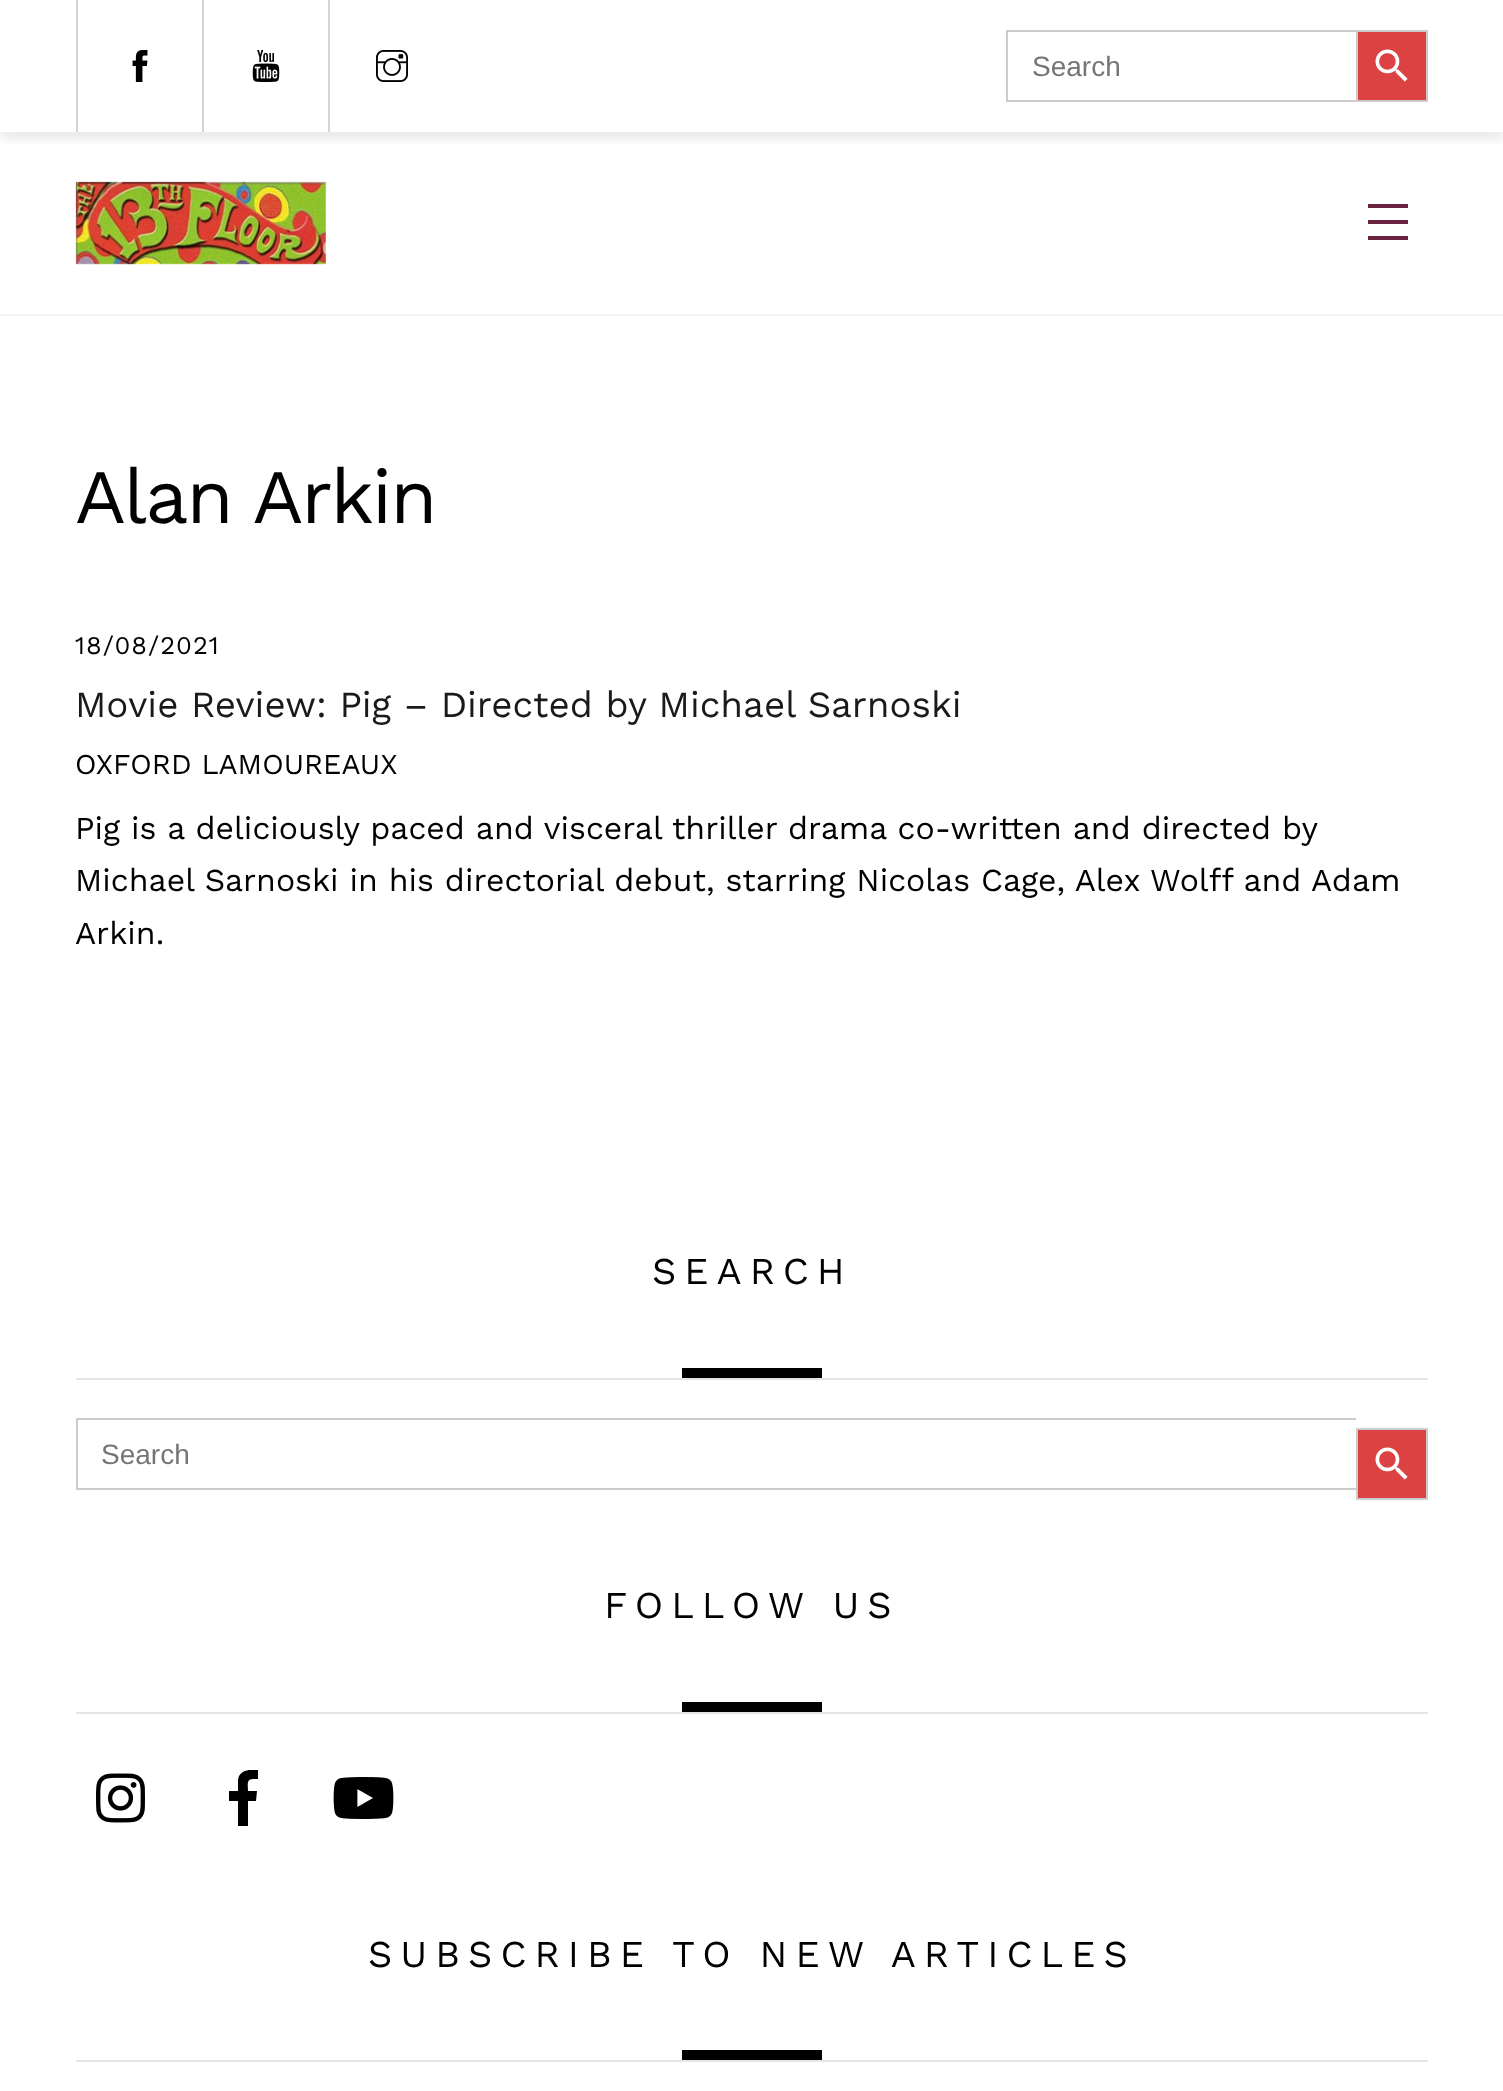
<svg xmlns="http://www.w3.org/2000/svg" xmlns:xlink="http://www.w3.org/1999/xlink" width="1503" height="2091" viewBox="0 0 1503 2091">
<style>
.cls-1{font:28px Liberation Sans;fill:#757575}
.cls-2{font:77px Work Sans;letter-spacing:-2.25px;fill:#000000}
.cls-3{font:25.5px Work Sans;letter-spacing:1px;fill:#000000}
.cls-4{font:36.8px Work Sans;fill:#1a1a1a}
.cls-5{font:28.75px Work Sans;fill:#000000}
.cls-6{font:32px Work Sans;fill:#000000}
.cls-7{font:38px Work Sans;letter-spacing:8px;fill:#000000}
</style>
<defs>
<clipPath id="clip1"><rect x="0" y="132" width="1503" height="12"/></clipPath>
<clipPath id="clip2"><rect x="216" y="1770" width="56" height="56"/></clipPath>
</defs>
<rect width="100%" height="100%" fill="#ffffff"/>
<g clip-path="url(#clip1)">
<rect fill="#000000" fill-opacity="0.1" filter="blur(7px)" x="0" y="6" width="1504" height="132"/>
</g>
<rect fill="#d4d4d4" x="76" y="0" width="2" height="132"/>
<image xlink:href="image0.png" x="132" y="50" width="16" height="32"/>
<rect fill="#d4d4d4" x="202" y="0" width="2" height="132"/>
<image xlink:href="image1.png" x="252" y="50" width="28" height="32"/>
<rect fill="#d4d4d4" x="328" y="0" width="2" height="132"/>
<image xlink:href="image2.png" x="376" y="50" width="32" height="32"/>
<rect fill="#cccccc" x="1006" y="30" width="350" height="2"/>
<rect fill="#cccccc" x="1006" y="100" width="350" height="2"/>
<rect fill="#cccccc" x="1006" y="30" width="2" height="72"/>
<rect fill="#dd4242" stroke="#cccccc" stroke-width="2" x="1357" y="31" width="70" height="70"/>
<image xlink:href="image3.png" x="1375" y="49" width="33" height="33"/>
<rect fill="#f2f2f2" x="0" y="314" width="1503" height="2"/>
<image xlink:href="image4.png" x="75" y="181" width="251" height="84"/>
<rect fill="#6a2441" x="1368" y="236" width="40" height="4"/>
<rect fill="#6a2441" x="1368" y="204" width="40" height="4"/>
<rect fill="#6a2441" x="1368" y="220" width="40" height="4"/>
<rect fill="#e5e5e5" x="76" y="1378" width="1352" height="2"/>
<rect fill="#000000" x="682" y="1368" width="140" height="10"/>
<rect fill="#cccccc" x="76" y="1418" width="1280" height="2"/>
<rect fill="#cccccc" x="76" y="1488" width="1280" height="2"/>
<rect fill="#cccccc" x="76" y="1418" width="2" height="72"/>
<rect fill="#dd4242" stroke="#cccccc" stroke-width="2" x="1357" y="1429" width="70" height="70"/>
<image xlink:href="image3.png" x="1375" y="1447" width="33" height="33"/>
<rect fill="#e5e5e5" x="76" y="1712" width="1352" height="2"/>
<rect fill="#000000" x="682" y="1702" width="140" height="10"/>
<image xlink:href="image5.png" x="96" y="1773" width="49" height="50"/>
<g clip-path="url(#clip2)">
<path fill="#000000" d="M253 1779C246 1779 248 1786 248 1791H257L256 1801H248V1826H238V1801H229V1791H238V1780C239 1770 250 1769 258 1770V1779Z"/>
</g>
<image xlink:href="image6.png" x="333" y="1777" width="61" height="42"/>
<rect fill="#e5e5e5" x="76" y="2060" width="1352" height="2"/>
<rect fill="#000000" x="682" y="2050" width="140" height="10"/>
<text class="cls-1" x="1032" y="76">Search</text>
<text class="cls-2" x="75" y="523">Alan Arkin</text>
<text class="cls-3" x="75" y="654">18/08/2021</text>
<text class="cls-4" x="75" y="717">Movie Review: Pig – Directed by Michael Sarnoski</text>
<text class="cls-5" x="75" y="774">OXFORD LAMOUREAUX</text>
<text class="cls-6"><tspan x="75" y="839">Pig is a deliciously paced and visceral thriller drama co-written and directed by</tspan><tspan x="75" y="891">Michael Sarnoski in his directorial debut, starring Nicolas Cage, Alex Wolff and Adam</tspan><tspan x="75" y="944">Arkin.</tspan></text>
<text class="cls-7" x="652" y="1284">SEARCH</text>
<text class="cls-1" x="101" y="1464">Search</text>
<text class="cls-7" x="604" y="1618">FOLLOW US</text>
<text class="cls-7" x="368" y="1967">SUBSCRIBE TO NEW ARTICLES</text>
</svg>
